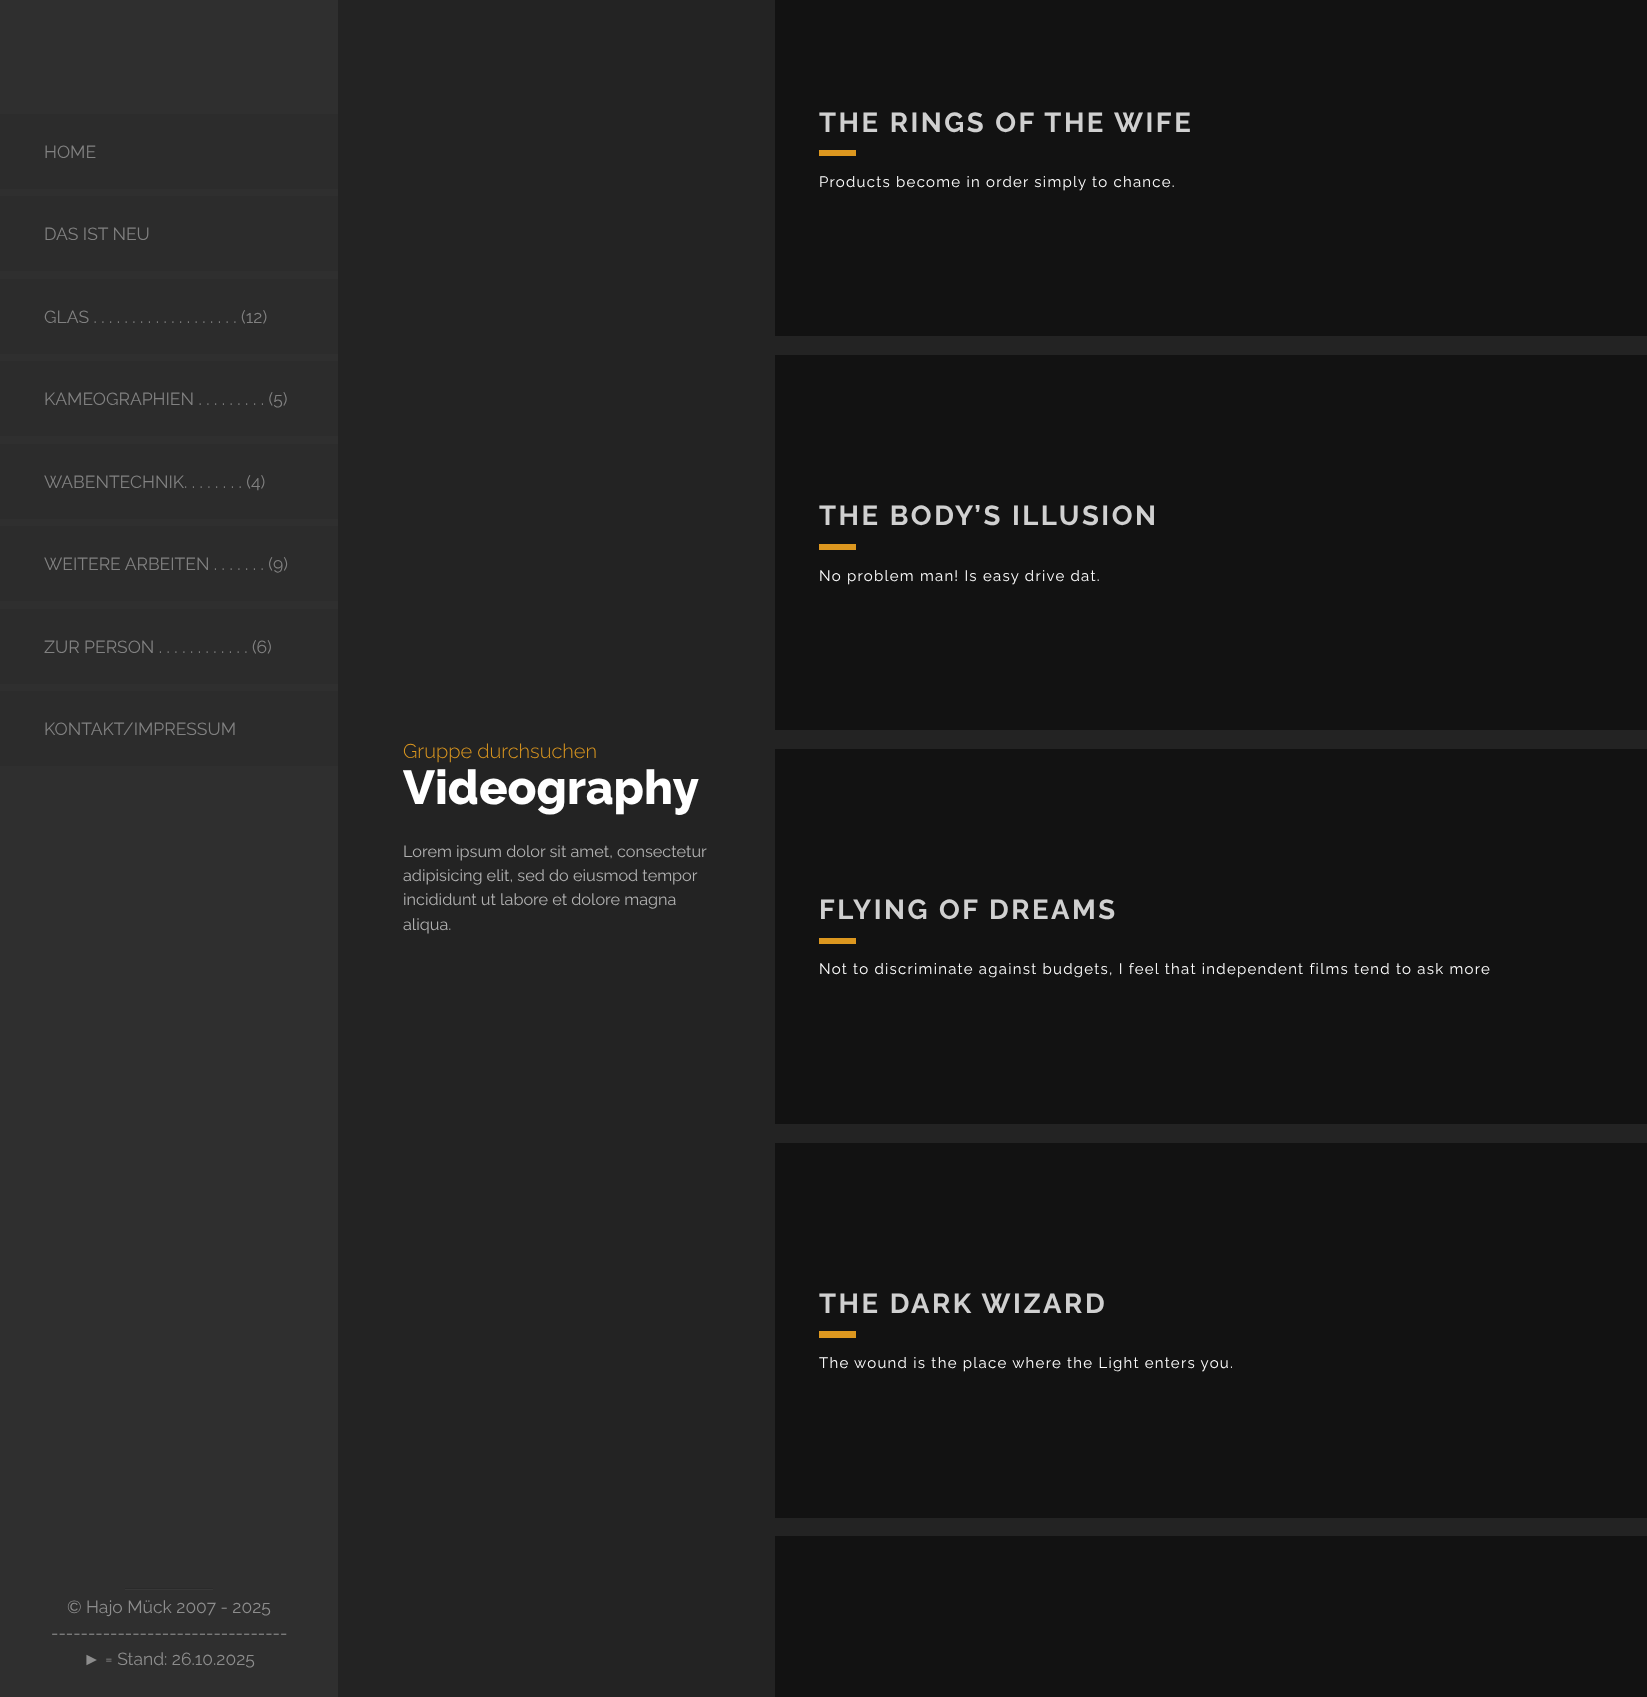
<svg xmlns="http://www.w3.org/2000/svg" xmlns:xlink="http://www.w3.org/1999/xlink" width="1647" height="1697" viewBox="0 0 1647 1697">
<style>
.cls-1{font:17.5px Raleway;fill:#818181}
.cls-2{font:17.5px Raleway;fill:#8d8d8d}
.cls-3{font:17.5px Liberation Serif;fill:#8d8d8d}
.cls-4{font:300 20px Raleway;fill:#dc971f}
.cls-5{font:800 47.5px Raleway;fill:#ffffff}
.cls-6{font:16.25px Raleway;fill:#b1b1b1}
.cls-7{font:bold 27.5px Raleway;letter-spacing:2.5px;fill:#d0d0d0}
.cls-8{font:15px Raleway;letter-spacing:1.25px;fill:#ffffff}
</style>
<rect width="100%" height="100%" fill="#2f2f2f"/>
<rect fill="#2c2c2c" x="0" y="114" width="338" height="75"/>
<rect fill="#2c2c2c" x="0" y="196" width="338" height="75"/>
<rect fill="#2c2c2c" x="0" y="279" width="338" height="75"/>
<rect fill="#2c2c2c" x="0" y="361" width="338" height="75"/>
<rect fill="#2c2c2c" x="0" y="444" width="338" height="75"/>
<rect fill="#2c2c2c" x="0" y="526" width="338" height="75"/>
<rect fill="#2c2c2c" x="0" y="609" width="338" height="75"/>
<rect fill="#2c2c2c" x="0" y="691" width="338" height="75"/>
<rect fill="#383838" x="125" y="1589" width="88" height="1"/>
<rect fill="#2a2a2a" x="125" y="1588" width="88" height="1"/>
<rect fill="#232323" x="338" y="0" width="1309" height="1697"/>
<rect fill="#121212" x="775" y="0" width="872" height="336"/>
<rect fill="#dc971f" x="819" y="150" width="37" height="6"/>
<rect fill="#121212" x="775" y="355" width="872" height="375"/>
<rect fill="#dc971f" x="819" y="544" width="37" height="6"/>
<rect fill="#121212" x="775" y="749" width="872" height="375"/>
<rect fill="#dc971f" x="819" y="938" width="37" height="6"/>
<rect fill="#121212" x="775" y="1143" width="872" height="375"/>
<rect fill="#dc971f" x="819" y="1331" width="37" height="7"/>
<rect fill="#121212" x="775" y="1536" width="872" height="161"/>
<text class="cls-1" x="44" y="158">HOME</text>
<text class="cls-1" x="44" y="240">DAS IST NEU</text>
<text class="cls-1" x="44" y="323">GLAS . . . . . . . . . . . . . . . . . . . (12)</text>
<text class="cls-1" x="44" y="405">KAMEOGRAPHIEN . . . . . . . . . (5)</text>
<text class="cls-1" x="44" y="488">WABENTECHNIK. . . . . . . . (4)</text>
<text class="cls-1" x="44" y="570">WEITERE ARBEITEN . . . . . . . (9)</text>
<text class="cls-1" x="44" y="653">ZUR PERSON . . . . . . . . . . . . (6)</text>
<text class="cls-1" x="44" y="735">KONTAKT/IMPRESSUM</text>
<text class="cls-2" x="67" y="1613">© Hajo Mück 2007 - 2025</text>
<text class="cls-2" x="51" y="1639">--------------------------------</text>
<text class="cls-3" x="83" y="1665">►</text>
<text class="cls-2" x="105" y="1665">= Stand: 26.10.2025</text>
<text class="cls-4" x="403" y="758">Gruppe durchsuchen</text>
<text class="cls-5" x="403" y="804">Videography</text>
<text class="cls-6"><tspan x="403" y="857">Lorem ipsum dolor sit amet, consectetur</tspan><tspan x="403" y="881">adipisicing elit, sed do eiusmod tempor</tspan><tspan x="403" y="905">incididunt ut labore et dolore magna</tspan><tspan x="403" y="930">aliqua.</tspan></text>
<text class="cls-7" x="819" y="132">THE RINGS OF THE WIFE</text>
<text class="cls-8" x="819" y="187">Products become in order simply to chance.</text>
<text class="cls-7" x="819" y="525">THE BODY’S ILLUSION</text>
<text class="cls-8" x="819" y="581">No problem man! Is easy drive dat.</text>
<text class="cls-7" x="819" y="919">FLYING OF DREAMS</text>
<text class="cls-8" x="819" y="974">Not to discriminate against budgets, I feel that independent films tend to ask more</text>
<text class="cls-7" x="819" y="1313">THE DARK WIZARD</text>
<text class="cls-8" x="819" y="1368">The wound is the place where the Light enters you.</text>
</svg>
